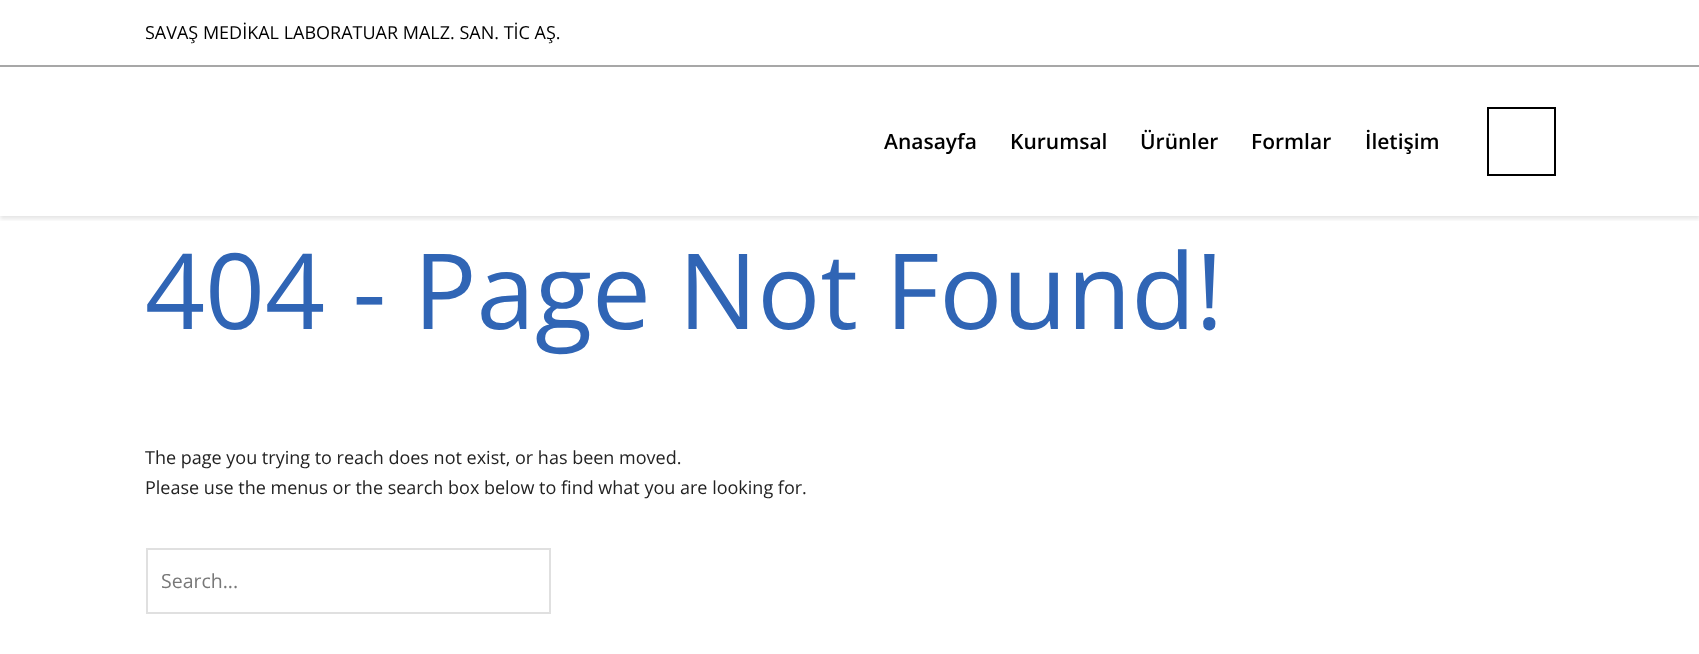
<svg xmlns="http://www.w3.org/2000/svg" xmlns:xlink="http://www.w3.org/1999/xlink" width="1699" height="654" viewBox="0 0 1699 654">
<style>
.cls-1{font:18px Open Sans;fill:#000000}
.cls-2{font:600 21px Open Sans;fill:#000000}
.cls-3{font:105px Open Sans;fill:#3065b5}
.cls-4{font:18px Open Sans;fill:#222222}
.cls-5{font:19.5px Open Sans;fill:#787878}
</style>
<defs>
<clipPath id="clip1"><rect x="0" y="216" width="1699" height="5"/></clipPath>
<clipPath id="clip2"><rect x="146" y="0" width="1222" height="65"/></clipPath>
</defs>
<rect width="100%" height="100%" fill="#ffffff"/>
<rect fill="#a7a7a7" x="0" y="65" width="1699" height="2"/>
<g clip-path="url(#clip1)">
<rect fill="#000000" fill-opacity="0.1" filter="blur(2px)" x="0" y="69" width="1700" height="150"/>
</g>
<rect fill="none" stroke="#000000" stroke-width="2" x="1488" y="108" width="67" height="67"/>
<rect fill="none" stroke="#e0e0e0" stroke-width="2" x="147" y="549" width="403" height="64"/>
<g clip-path="url(#clip2)">
<text class="cls-1" x="145" y="39">SAVAŞ MEDİKAL LABORATUAR MALZ. SAN. TİC AŞ.</text>
</g>
<text class="cls-2" x="884" y="149">Anasayfa</text>
<text class="cls-2" x="1010" y="149">Kurumsal</text>
<text class="cls-2" x="1140" y="149">Ürünler</text>
<text class="cls-2" x="1251" y="149">Formlar</text>
<text class="cls-2" x="1365" y="149">İletişim</text>
<text class="cls-3" x="145" y="329">404 - Page Not Found!</text>
<text class="cls-4"><tspan x="145" y="464">The page you trying to reach does not exist, or has been moved.</tspan><tspan x="145" y="494">Please use the menus or the search box below to find what you are looking for.</tspan></text>
<text class="cls-5" x="161" y="588">Search...</text>
</svg>
